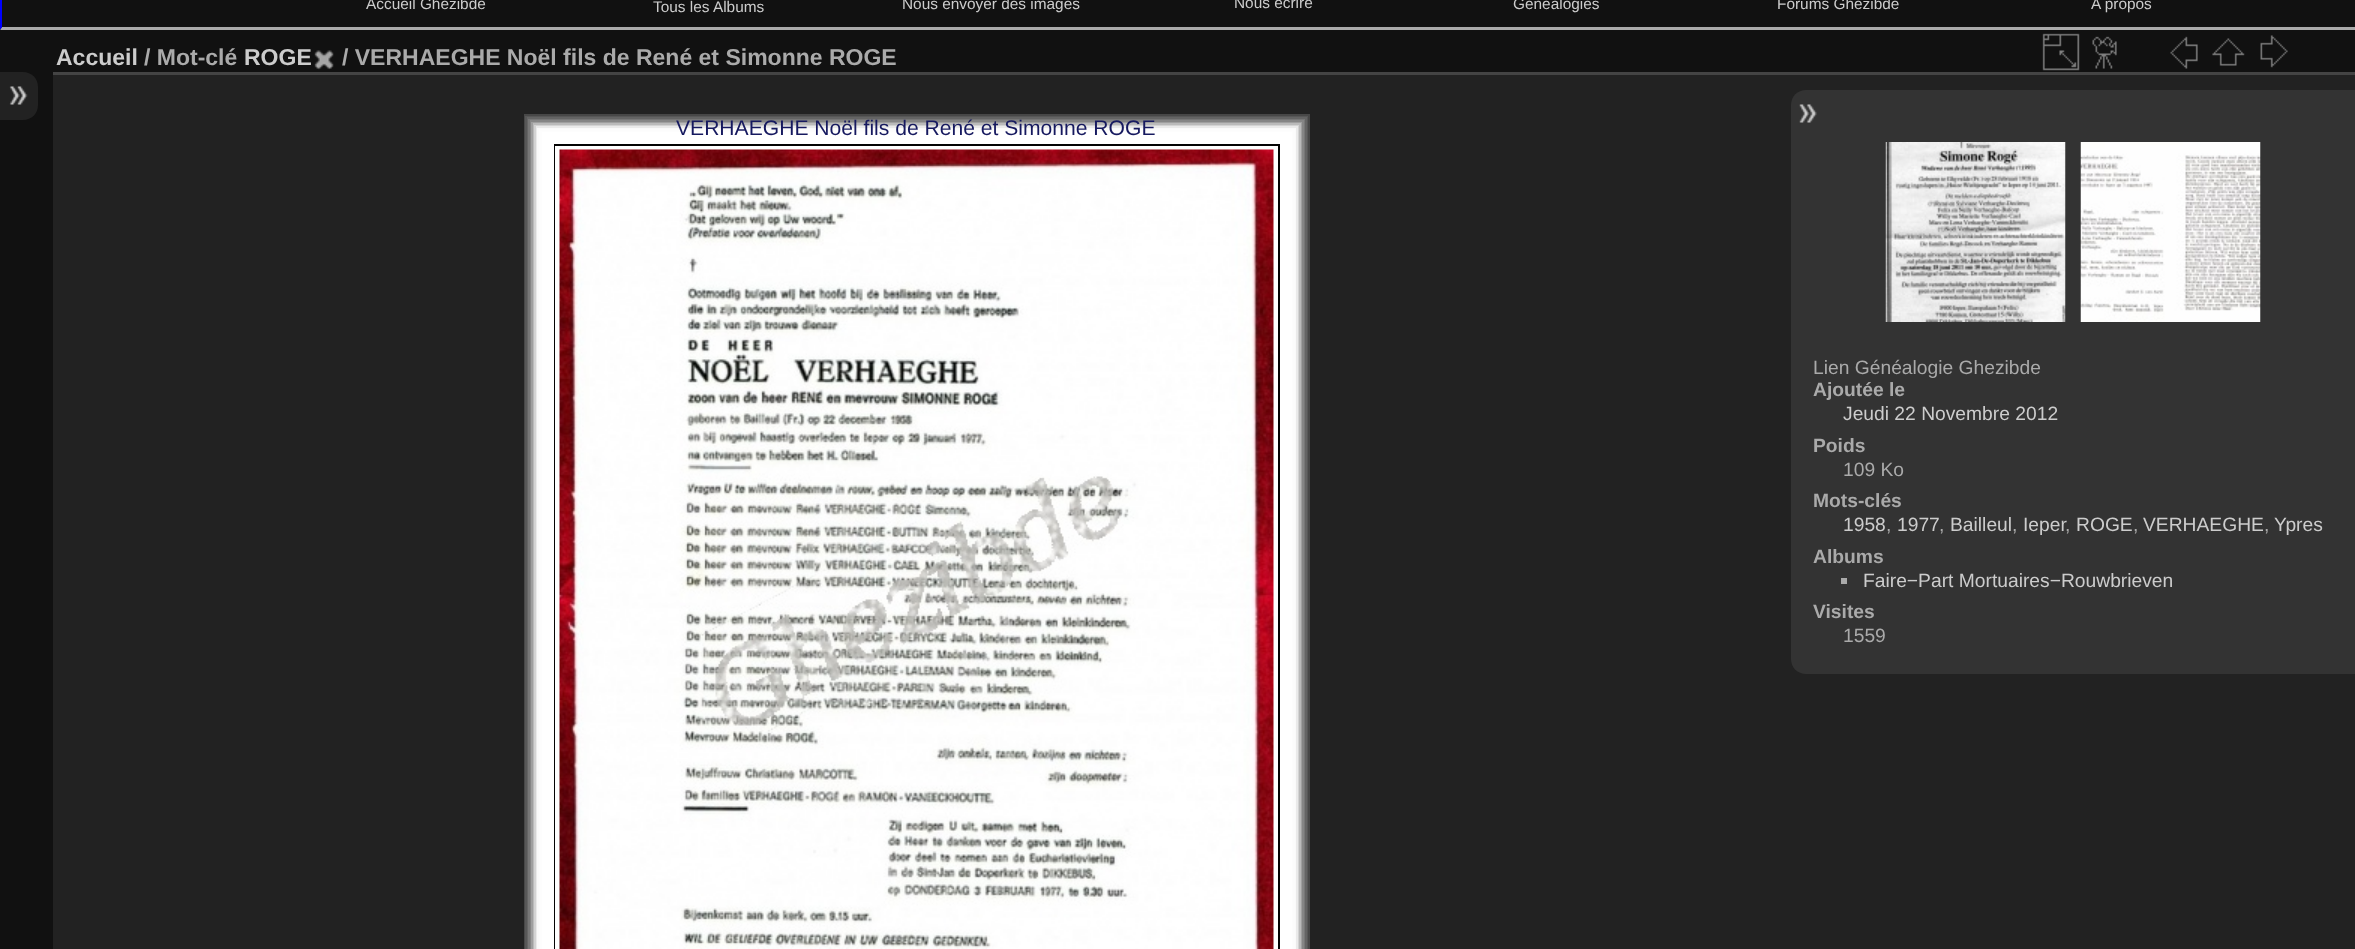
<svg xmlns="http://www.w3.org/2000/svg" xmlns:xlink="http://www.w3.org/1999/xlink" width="2355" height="949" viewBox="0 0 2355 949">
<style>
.cls-1{font:15.4px Liberation Sans;fill:#cccccc}
.cls-2{font:bold 23px Liberation Sans;fill:#cccccc}
.cls-3{font:bold 23px Liberation Sans;fill:#aaaaaa}
.cls-4{font:21.1px Liberation Sans;fill:#16195f}
.cls-5{font:19.25px Liberation Sans;fill:#aaaaaa}
.cls-6{font:bold 19.25px Liberation Sans;fill:#aaaaaa}
.cls-7{font:19.25px Liberation Sans;fill:#cccccc}
</style>
<rect width="100%" height="100%" fill="#111111"/>
<path fill="#aaaaaa" d="M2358 30H0L2 27H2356Z"/>
<path fill="#0000ff" d="M0 30V-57L2-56V27Z"/>
<path fill="#222222" d="M0 72H23C31.5 72 38 78.5 38 87V105C38 113.5 31.5 120 23 120H0Z"/>
<image xlink:href="image0.png" x="9" y="86" width="19" height="19"/>
<rect fill="#222222" x="53" y="75" width="2302" height="874"/>
<rect fill="#444444" x="53" y="72" width="2302" height="3"/>
<image xlink:href="image1.png" x="314" y="50" width="20" height="20"/>
<image xlink:href="image2.png" x="2042" y="33" width="38" height="38"/>
<image xlink:href="image3.png" x="2092" y="36" width="25" height="33"/>
<image xlink:href="image4.png" x="2170" y="36" width="28" height="33"/>
<image xlink:href="image5.png" x="2212" y="38" width="33" height="28"/>
<image xlink:href="image6.png" x="2260" y="35" width="28" height="33"/>
<path fill="#333333" d="M1806 90H2355V674H1806C1797.5 674 1791 667.5 1791 659V105C1791 96.5 1797.5 90 1806 90Z"/>
<image xlink:href="image7.png" x="1799" y="104" width="18" height="19"/>
<rect fill="none" stroke="#474747" stroke-width="2" x="525" y="115" width="784" height="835"/>
<rect fill="none" stroke="#575757" stroke-width="2" x="526" y="117" width="781" height="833"/>
<rect fill="none" stroke="#646464" stroke-width="2" x="528" y="118" width="778" height="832"/>
<rect fill="none" stroke="#777777" stroke-width="2" x="529" y="120" width="775" height="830"/>
<rect fill="none" stroke="#858585" stroke-width="2" x="531" y="121" width="772" height="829"/>
<rect fill="none" stroke="#9f9f9f" stroke-width="2" x="532" y="123" width="769" height="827"/>
<rect fill="none" stroke="#bababa" stroke-width="2" x="534" y="124" width="766" height="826"/>
<rect fill="none" stroke="#d3d3d3" stroke-width="2" x="535" y="126" width="763" height="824"/>
<rect fill="none" stroke="#eaeaea" stroke-width="2" x="537" y="127" width="760" height="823"/>
<rect fill="none" stroke="#fafafa" stroke-width="2" x="538" y="129" width="757" height="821"/>
<rect fill="none" stroke="#fcfcfc" stroke-width="2" x="540" y="130" width="754" height="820"/>
<rect fill="none" stroke="#fdfdfd" stroke-width="2" x="541" y="132" width="751" height="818"/>
<rect fill="none" stroke="#ffffff" stroke-width="2" x="543" y="133" width="748" height="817"/>
<rect fill="none" stroke="#ffffff" stroke-width="11" x="548.5" y="139.5" width="736" height="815"/>
<rect fill="none" stroke="#040404" stroke-width="2" x="555" y="145" width="724" height="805"/>
<rect fill="none" stroke="#ffffff" stroke-width="5" x="557.5" y="148.5" width="718" height="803"/>
<image xlink:href="image8.png" x="559" y="149" width="715" height="800"/>
<image xlink:href="image9.png" x="1885" y="142" width="181" height="180"/>
<image xlink:href="image10.png" x="2080" y="142" width="181" height="180"/>
<rect fill="#aaaaaa" x="1841" y="578" width="6" height="6"/>
<text class="cls-1" x="366" y="9">Accueil Ghezibde</text>
<text class="cls-1" x="653" y="12">Tous les Albums</text>
<text class="cls-1" x="902" y="9">Nous envoyer des images</text>
<text class="cls-1" x="1234" y="8">Nous écrire</text>
<text class="cls-1" x="1513" y="9">Généalogies</text>
<text class="cls-1" x="1777" y="9">Forums Ghezibde</text>
<text class="cls-1" x="2091" y="9">A propos</text>
<text class="cls-2" x="56" y="65">Accueil</text>
<text class="cls-3" x="144" y="65">/ Mot-clé</text>
<text class="cls-2" x="244" y="65">ROGE</text>
<text class="cls-3" x="342" y="65">/ VERHAEGHE Noël fils de René et Simonne ROGE</text>
<text class="cls-4" x="676" y="135">VERHAEGHE Noël fils de René et Simonne ROGE</text>
<text class="cls-5" x="1813" y="374">Lien Généalogie Ghezibde</text>
<text class="cls-6" x="1813" y="396">Ajoutée le</text>
<text class="cls-7" x="1843" y="420">Jeudi 22 Novembre 2012</text>
<text class="cls-6" x="1813" y="452">Poids</text>
<text class="cls-5" x="1843" y="476">109 Ko</text>
<text class="cls-6" x="1813" y="507">Mots-clés</text>
<text class="cls-7" x="1843" y="531">1958</text>
<text class="cls-5" x="1886" y="531">,</text>
<text class="cls-7" x="1897" y="531">1977</text>
<text class="cls-5" x="1939" y="531">,</text>
<text class="cls-7" x="1950" y="531">Bailleul</text>
<text class="cls-5" x="2012" y="531">,</text>
<text class="cls-7" x="2023" y="531">Ieper</text>
<text class="cls-5" x="2065" y="531">,</text>
<text class="cls-7" x="2076" y="531">ROGE</text>
<text class="cls-5" x="2133" y="531">,</text>
<text class="cls-7" x="2143" y="531">VERHAEGHE</text>
<text class="cls-5" x="2264" y="531">,</text>
<text class="cls-7" x="2274" y="531">Ypres</text>
<text class="cls-6" x="1813" y="563">Albums</text>
<text class="cls-7" x="1863" y="587">Faire−Part Mortuaires−Rouwbrieven</text>
<text class="cls-6" x="1813" y="618">Visites</text>
<text class="cls-5" x="1843" y="642">1559</text>
</svg>
